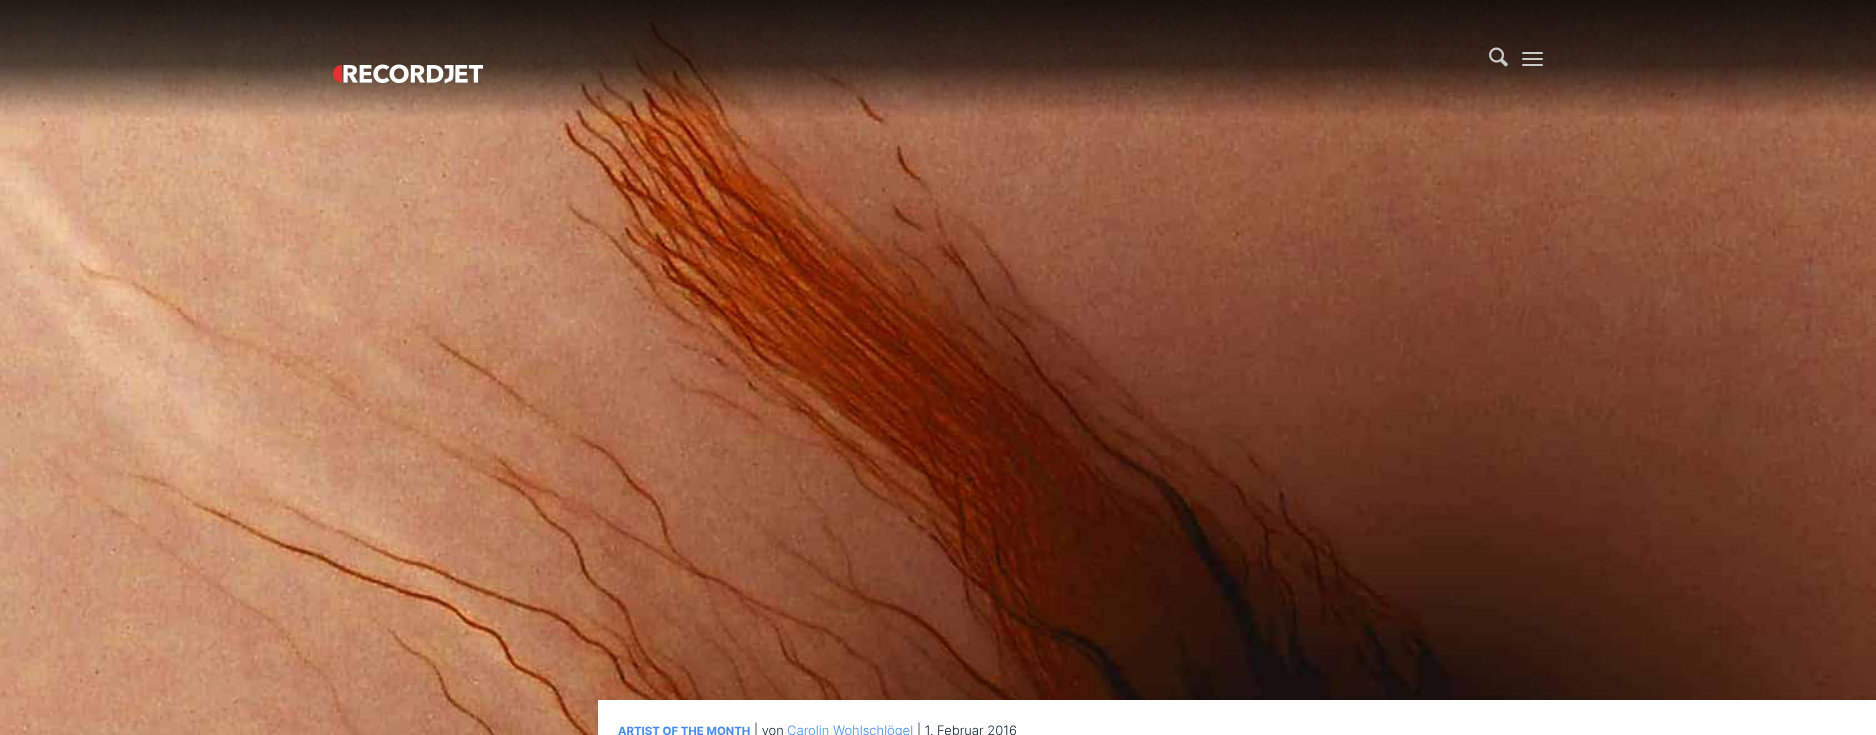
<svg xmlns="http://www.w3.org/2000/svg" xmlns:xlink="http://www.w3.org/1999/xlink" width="1876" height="735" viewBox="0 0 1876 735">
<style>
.cls-1{font:bold 11.4px Inter;fill:#468bf2}
.cls-2{font:300 13px Inter;fill:#041b26}
.cls-3{font:300 13px Inter;fill:#468bf2}
</style>
<rect width="100%" height="100%" fill="#ffffff"/>
<image xlink:href="image2.png" x="0" y="0" width="1876" height="735"/>
<image xlink:href="image0.png" x="1489" y="47" width="19" height="20"/>
<rect fill="#c9c9c9" x="1522" y="58" width="21" height="2" rx="1"/>
<rect fill="#c9c9c9" x="1522" y="52" width="21" height="2" rx="1"/>
<rect fill="#c9c9c9" x="1522" y="64" width="21" height="2" rx="1"/>
<image xlink:href="image1.png" x="333" y="64" width="150" height="20"/>
<rect fill="#ffffff" x="598" y="700" width="1278" height="35"/>
<text class="cls-1" x="618" y="735">ARTIST OF THE MONTH</text>
<text class="cls-2" x="754" y="735">| von</text>
<text class="cls-3" x="787" y="735">Carolin Wohlschlögel</text>
<text class="cls-2" x="917" y="735">| 1. Februar 2016</text>
</svg>
